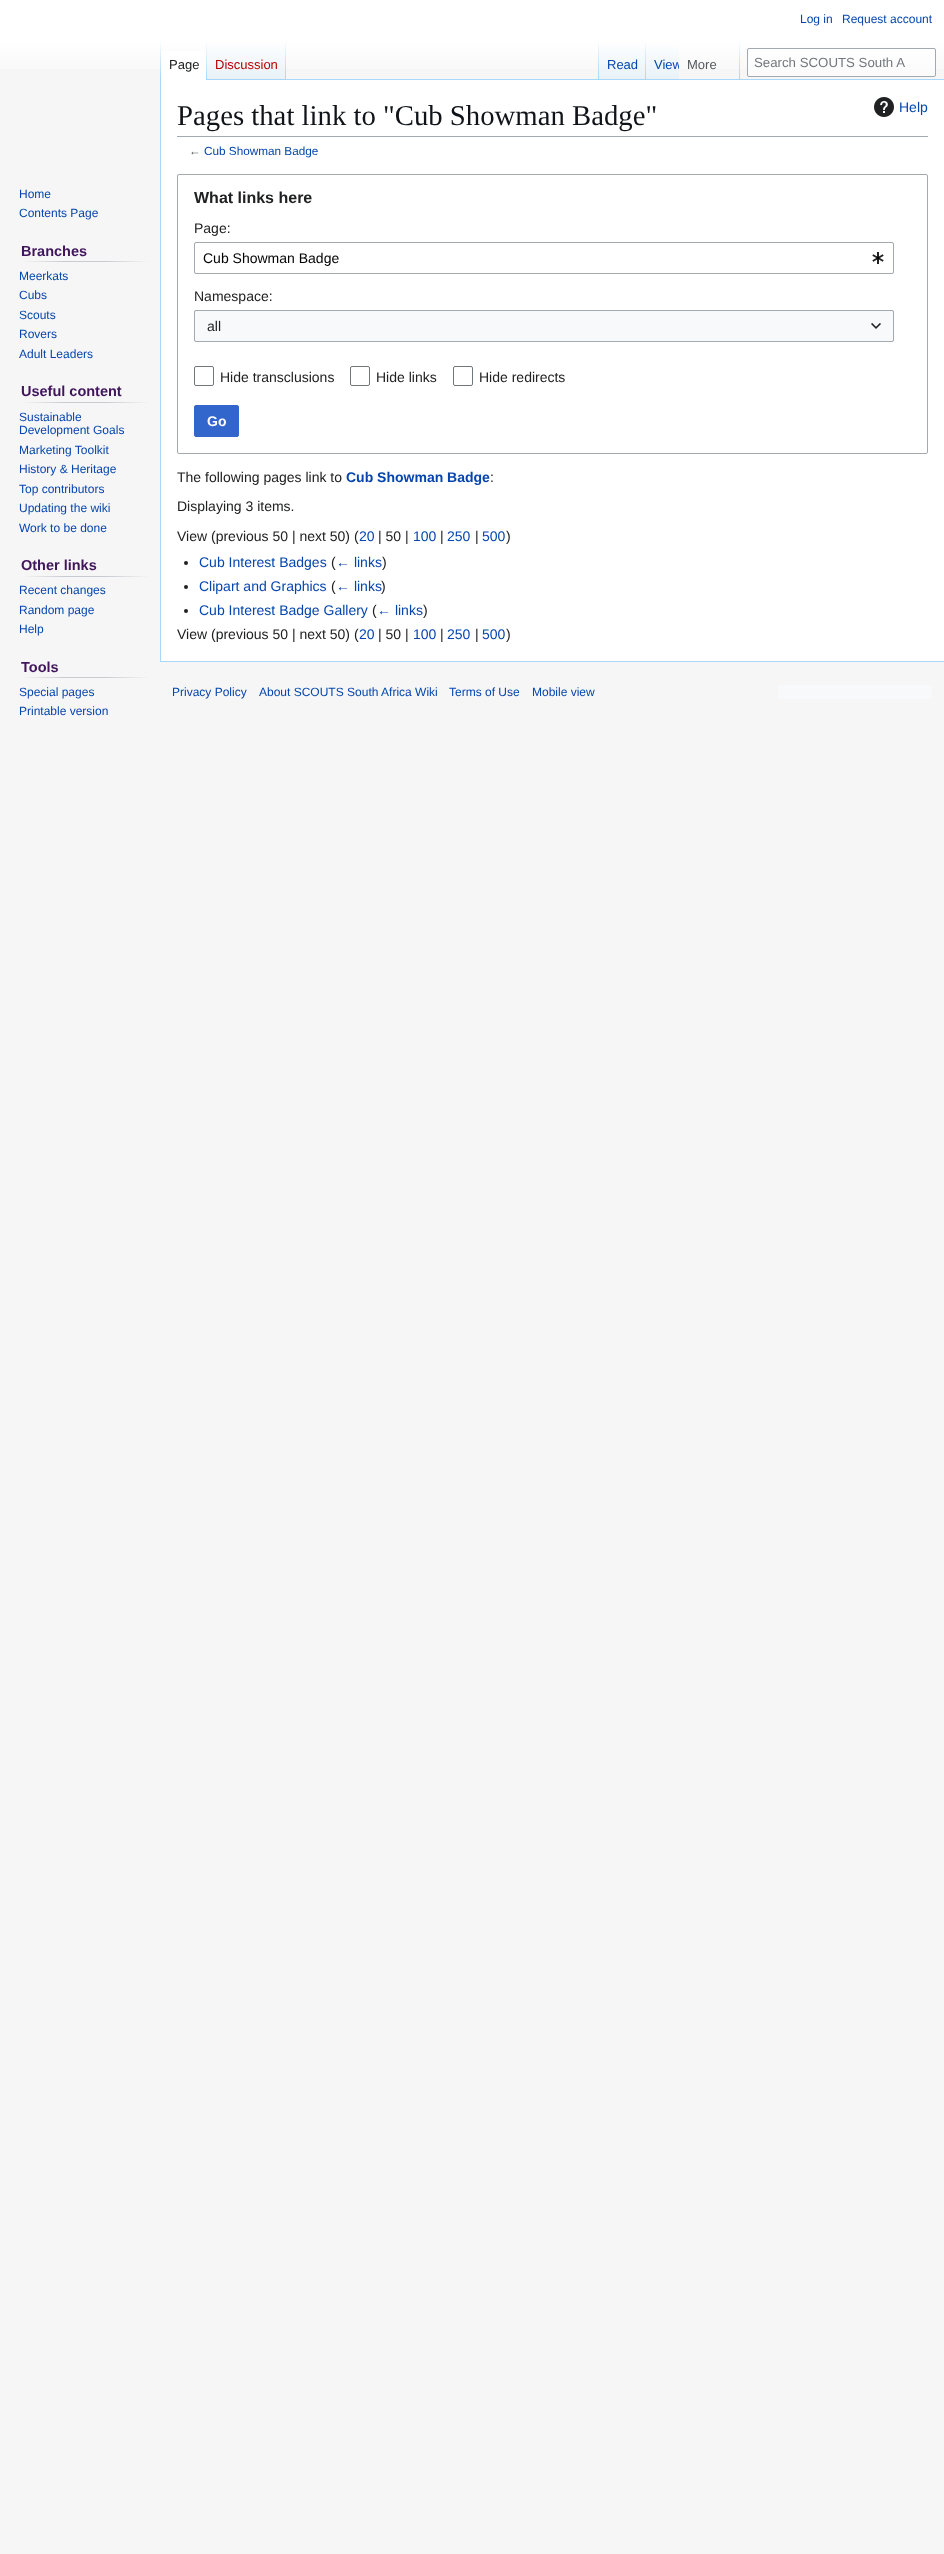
<svg xmlns="http://www.w3.org/2000/svg" xmlns:xlink="http://www.w3.org/1999/xlink" width="944" height="2554" viewBox="0 0 944 2554">
<style>
.cls-1{font:12px Liberation Sans;fill:#0645ad}
.cls-2{font:13px Liberation Sans;fill:#202122}
.cls-3{font:13px Liberation Sans;fill:#ba0000}
.cls-4{font:13px Liberation Sans;fill:#0645ad}
.cls-5{font:13px Liberation Sans;fill:#54595d}
.cls-6{font:13.25px Liberation Sans;fill:#72777d}
.cls-7{font:bold 14.5px Liberation Sans;fill:#40155c}
.cls-8{font:28.75px Liberation Serif;fill:#101418}
.cls-9{font:14px Liberation Sans;fill:#0645ad}
.cls-10{font:11.75px Liberation Sans;fill:#54595d}
.cls-11{font:11.75px Liberation Sans;fill:#0645ad}
.cls-12{font:bold 16px Liberation Sans;fill:#202122}
.cls-13{font:14px Liberation Sans;fill:#202122}
.cls-14{font:14px Liberation Sans;fill:#000000}
.cls-15{font:bold 14px Liberation Sans;fill:#ffffff}
.cls-16{font:bold 14px Liberation Sans;fill:#0645ad}
</style>
<defs>
<linearGradient id="g1" gradientUnits="userSpaceOnUse" x1="472" y1="0" x2="472" y2="80"><stop offset="0.5" stop-color="#ffffff"/><stop offset="1" stop-color="#f6f6f6"/></linearGradient>
<linearGradient id="g2" gradientUnits="userSpaceOnUse" x1="161" y1="40" x2="161" y2="80"><stop offset="0" stop-color="#a7d7f9" stop-opacity="0"/><stop offset="1" stop-color="#a7d7f9"/></linearGradient>
<linearGradient id="g3" gradientUnits="userSpaceOnUse" x1="207" y1="40" x2="207" y2="80"><stop offset="0" stop-color="#ffffff"/><stop offset="1" stop-color="#a7d7f9"/></linearGradient>
<linearGradient id="g4" gradientUnits="userSpaceOnUse" x1="247" y1="80" x2="247" y2="40"><stop offset="0" stop-color="#77c1f6"/><stop offset="0.03" stop-color="#e8f2f8"/><stop offset="1" stop-color="#ffffff"/></linearGradient>
<linearGradient id="g5" gradientUnits="userSpaceOnUse" x1="286" y1="40" x2="286" y2="80"><stop offset="0" stop-color="#a7d7f9" stop-opacity="0"/><stop offset="1" stop-color="#a7d7f9"/></linearGradient>
<linearGradient id="g6" gradientUnits="userSpaceOnUse" x1="599" y1="40" x2="599" y2="80"><stop offset="0" stop-color="#a7d7f9" stop-opacity="0"/><stop offset="1" stop-color="#a7d7f9"/></linearGradient>
<linearGradient id="g7" gradientUnits="userSpaceOnUse" x1="623" y1="80" x2="623" y2="40"><stop offset="0" stop-color="#77c1f6"/><stop offset="0.03" stop-color="#e8f2f8"/><stop offset="1" stop-color="#ffffff"/></linearGradient>
<linearGradient id="g8" gradientUnits="userSpaceOnUse" x1="646" y1="40" x2="646" y2="80"><stop offset="0" stop-color="#a7d7f9" stop-opacity="0"/><stop offset="1" stop-color="#a7d7f9"/></linearGradient>
<linearGradient id="g9" gradientUnits="userSpaceOnUse" x1="663" y1="80" x2="663" y2="40"><stop offset="0" stop-color="#77c1f6"/><stop offset="0.03" stop-color="#e8f2f8"/><stop offset="1" stop-color="#ffffff"/></linearGradient>
<linearGradient id="g10" gradientUnits="userSpaceOnUse" x1="740" y1="40" x2="740" y2="80"><stop offset="0" stop-color="#a7d7f9" stop-opacity="0"/><stop offset="1" stop-color="#a7d7f9"/></linearGradient>
<linearGradient id="g11" gradientUnits="userSpaceOnUse" x1="21" y1="262" x2="150" y2="262"><stop offset="0" stop-color="#f6f6f6"/><stop offset="0.33" stop-color="#c8ccd1"/><stop offset="0.66" stop-color="#c8ccd1"/><stop offset="1" stop-color="#f6f6f6"/></linearGradient>
<linearGradient id="g12" gradientUnits="userSpaceOnUse" x1="21" y1="403" x2="150" y2="403"><stop offset="0" stop-color="#f6f6f6"/><stop offset="0.33" stop-color="#c8ccd1"/><stop offset="0.66" stop-color="#c8ccd1"/><stop offset="1" stop-color="#f6f6f6"/></linearGradient>
<linearGradient id="g13" gradientUnits="userSpaceOnUse" x1="21" y1="577" x2="150" y2="577"><stop offset="0" stop-color="#f6f6f6"/><stop offset="0.33" stop-color="#c8ccd1"/><stop offset="0.66" stop-color="#c8ccd1"/><stop offset="1" stop-color="#f6f6f6"/></linearGradient>
<linearGradient id="g14" gradientUnits="userSpaceOnUse" x1="21" y1="678" x2="150" y2="678"><stop offset="0" stop-color="#f6f6f6"/><stop offset="0.33" stop-color="#c8ccd1"/><stop offset="0.66" stop-color="#c8ccd1"/><stop offset="1" stop-color="#f6f6f6"/></linearGradient>
<clipPath id="clip1"><rect x="646" y="40" width="33" height="40"/></clipPath>
</defs>
<rect width="100%" height="100%" fill="#f6f6f6"/>
<rect fill="url(#g1)" x="0" y="0" width="944" height="69"/>
<rect fill="#a7d7f9" x="160" y="661" width="784" height="1"/>
<rect fill="#a7d7f9" x="160" y="79" width="1" height="583"/>
<rect fill="url(#g2)" x="160" y="40" width="1" height="40"/>
<rect fill="#ffffff" x="161" y="51" width="45" height="29"/>
<rect fill="url(#g3)" x="206" y="40" width="1" height="40"/>
<rect fill="url(#g4)" x="207" y="46" width="79" height="34"/>
<rect fill="url(#g5)" x="285" y="40" width="1" height="40"/>
<rect fill="#a7d7f9" x="286" y="79" width="658" height="1"/>
<rect fill="url(#g6)" x="598" y="40" width="1" height="40"/>
<rect fill="url(#g7)" x="599" y="46" width="47" height="33"/>
<rect fill="url(#g8)" x="645" y="40" width="1" height="40"/>
<rect fill="url(#g9)" x="646" y="46" width="33" height="33"/>
<rect fill="url(#g10)" x="739" y="40" width="1" height="40"/>
<rect fill="#ffffff" fill-opacity="0.5" stroke="#a2a9b1" x="747.5" y="48.5" width="188" height="28" rx="1.5"/>
<rect fill="url(#g11)" x="21" y="261" width="129" height="1"/>
<rect fill="url(#g12)" x="21" y="402" width="129" height="1"/>
<rect fill="url(#g13)" x="21" y="576" width="129" height="1"/>
<rect fill="url(#g14)" x="21" y="677" width="129" height="1"/>
<rect fill="#ffffff" x="161" y="80" width="783" height="581"/>
<rect fill="#a2a9b1" x="177" y="136" width="751" height="1"/>
<image xlink:href="image0.png" x="874" y="97" width="20" height="20"/>
<rect fill="none" stroke="#a2a9b1" x="177.5" y="174.5" width="750" height="279" rx="1.5"/>
<rect fill="none" stroke="#a2a9b1" x="194.5" y="242.5" width="699" height="31" rx="1.5"/>
<image xlink:href="image1.png" x="872" y="252" width="12" height="12"/>
<rect fill="#f8f9fa" x="194" y="310" width="700" height="32"/>
<rect fill="none" stroke="#a2a9b1" x="194.5" y="310.5" width="699" height="31" rx="1.5"/>
<image xlink:href="image2.png" x="871" y="323" width="10" height="6"/>
<rect fill="none" stroke="#72777d" x="194.5" y="366.5" width="19" height="19" rx="1.5"/>
<rect fill="none" stroke="#72777d" x="350.5" y="366.5" width="19" height="19" rx="1.5"/>
<rect fill="none" stroke="#72777d" x="453.5" y="366.5" width="19" height="19" rx="1.5"/>
<rect fill="#3366cc" stroke="#3366cc" x="194.5" y="405.5" width="44" height="31" rx="1.5"/>
<circle fill="#202122" cx="186" cy="563" r="2"/>
<circle fill="#202122" cx="186" cy="587" r="2"/>
<circle fill="#202122" cx="186" cy="611" r="2"/>
<rect fill="#f8f9fa" x="778" y="685" width="154" height="14"/>
<text class="cls-1" x="800" y="23">Log in</text>
<text class="cls-1" x="842" y="23">Request account</text>
<text class="cls-2" x="169" y="69">Page</text>
<text class="cls-3" x="215" y="69">Discussion</text>
<text class="cls-4" x="607" y="69">Read</text>
<g clip-path="url(#clip1)">
<text class="cls-4" x="654" y="69">View</text>
</g>
<text class="cls-5" x="687" y="69">More</text>
<text class="cls-6" x="754" y="67">Search SCOUTS South A</text>
<text class="cls-1"><tspan x="19" y="198">Home</tspan><tspan x="19" y="217">Contents Page</tspan></text>
<text class="cls-7" x="21" y="256">Branches</text>
<text class="cls-1"><tspan x="19" y="280">Meerkats</tspan><tspan x="19" y="299">Cubs</tspan><tspan x="19" y="319">Scouts</tspan><tspan x="19" y="338">Rovers</tspan><tspan x="19" y="358">Adult Leaders</tspan></text>
<text class="cls-7" x="21" y="396">Useful content</text>
<text class="cls-1"><tspan x="19" y="421">Sustainable</tspan><tspan x="19" y="434">Development Goals</tspan><tspan x="19" y="454">Marketing Toolkit</tspan><tspan x="19" y="473">History &amp; Heritage</tspan><tspan x="19" y="493">Top contributors</tspan><tspan x="19" y="512">Updating the wiki</tspan><tspan x="19" y="532">Work to be done</tspan></text>
<text class="cls-7" x="21" y="570">Other links</text>
<text class="cls-1"><tspan x="19" y="594">Recent changes</tspan><tspan x="19" y="614">Random page</tspan><tspan x="19" y="633">Help</tspan></text>
<text class="cls-7" x="21" y="672">Tools</text>
<text class="cls-1"><tspan x="19" y="696">Special pages</tspan><tspan x="19" y="715">Printable version</tspan></text>
<text class="cls-8" x="177" y="125">Pages that link to "Cub Showman Badge"</text>
<text class="cls-9" x="899" y="112">Help</text>
<text class="cls-10" x="189" y="155">←</text>
<text class="cls-11" x="204" y="155">Cub Showman Badge</text>
<text class="cls-12" x="194" y="203">What links here</text>
<text class="cls-13" x="194" y="233">Page:</text>
<text class="cls-14" x="203" y="263">Cub Showman Badge</text>
<text class="cls-13" x="194" y="301">Namespace:</text>
<text class="cls-13" x="207" y="331">all</text>
<text class="cls-13" x="220" y="382">Hide transclusions</text>
<text class="cls-13" x="376" y="382">Hide links</text>
<text class="cls-13" x="479" y="382">Hide redirects</text>
<text class="cls-15" x="207" y="426">Go</text>
<text class="cls-13" x="177" y="482">The following pages link to</text>
<text class="cls-16" x="346" y="482">Cub Showman Badge</text>
<text class="cls-13" x="490" y="482">:</text>
<text class="cls-13" x="177" y="511">Displaying 3 items.</text>
<text class="cls-13" x="177" y="541">View (previous 50 | next 50) (</text>
<text class="cls-9" x="359" y="541">20</text>
<text class="cls-13" x="378" y="541">| 50 |</text>
<text class="cls-9" x="413" y="541">100</text>
<text class="cls-13" x="440" y="541">|</text>
<text class="cls-9" x="447" y="541">250</text>
<text class="cls-13" x="475" y="541">|</text>
<text class="cls-9" x="482" y="541">500</text>
<text class="cls-13" x="506" y="541">)</text>
<text class="cls-9" x="199" y="567">Cub Interest Badges</text>
<text class="cls-13" x="331" y="567">(</text>
<text class="cls-9" x="336" y="567">← links</text>
<text class="cls-13" x="382" y="567">)</text>
<text class="cls-9" x="199" y="591">Clipart and Graphics</text>
<text class="cls-13" x="331" y="591">(</text>
<text class="cls-9" x="336" y="591">← links</text>
<text class="cls-13" x="381" y="591">)</text>
<text class="cls-9" x="199" y="615">Cub Interest Badge Gallery</text>
<text class="cls-13" x="372" y="615">(</text>
<text class="cls-9" x="377" y="615">← links</text>
<text class="cls-13" x="423" y="615">)</text>
<text class="cls-13" x="177" y="639">View (previous 50 | next 50) (</text>
<text class="cls-9" x="359" y="639">20</text>
<text class="cls-13" x="378" y="639">| 50 |</text>
<text class="cls-9" x="413" y="639">100</text>
<text class="cls-13" x="440" y="639">|</text>
<text class="cls-9" x="447" y="639">250</text>
<text class="cls-13" x="475" y="639">|</text>
<text class="cls-9" x="482" y="639">500</text>
<text class="cls-13" x="506" y="639">)</text>
<text class="cls-1" x="172" y="696">Privacy Policy</text>
<text class="cls-1" x="259" y="696">About SCOUTS South Africa Wiki</text>
<text class="cls-1" x="449" y="696">Terms of Use</text>
<text class="cls-1" x="532" y="696">Mobile view</text>
</svg>
